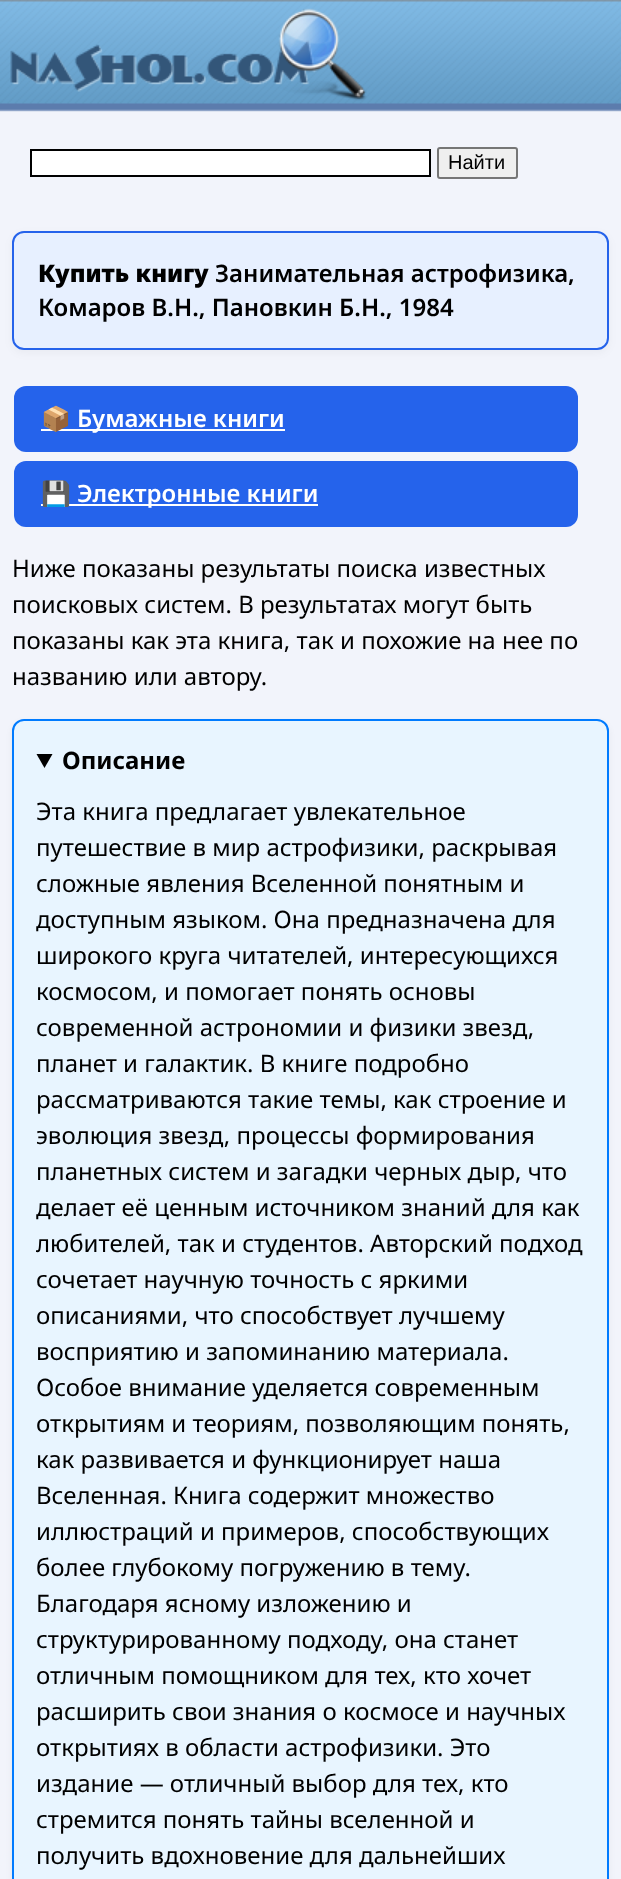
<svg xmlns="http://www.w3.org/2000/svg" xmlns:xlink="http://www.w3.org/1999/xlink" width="621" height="1879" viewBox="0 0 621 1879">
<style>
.cls-1{font:20px Liberation Sans;fill:#000000}
.cls-2{font:900 24px Noto Sans;fill:#000000}
.cls-3{font:600 24px Noto Sans;fill:#000000}
.cls-4{font:bold 24px Noto Color Emoji;fill:#ffffff}
.cls-5{font:600 24px Noto Sans;fill:#ffffff}
.cls-6{font:24px Noto Sans;fill:#000000}
.cls-7{font:bold 24px Noto Sans;fill:#000000}
</style>
<rect width="100%" height="100%" fill="#f2f4fb"/>
<image xlink:href="image0.png" x="0" y="0" width="621" height="112"/>
<image xlink:href="image1.png" x="10" y="8" width="357" height="93"/>
<rect fill="#ffffff" stroke="#000000" stroke-width="2" x="31" y="150" width="399" height="26"/>
<rect fill="#efefef" stroke="#767676" stroke-width="2" x="438" y="148" width="79" height="30" rx="2"/>
<rect fill="#000000" fill-opacity="0.04" filter="blur(4.5px)" x="12" y="234" width="597" height="119" rx="12"/>
<rect fill="#e7f0ff" stroke="#2563eb" stroke-width="2" x="13" y="232" width="595" height="117" rx="11"/>
<rect fill="#2563eb" x="14" y="386" width="564" height="66" rx="12"/>
<rect fill="#ffffff" x="41" y="429" width="244" height="2"/>
<rect fill="#2563eb" x="14" y="461" width="564" height="66" rx="12"/>
<rect fill="#ffffff" x="41" y="504" width="277" height="2"/>
<rect fill="#000000" fill-opacity="0.05" filter="blur(3px)" x="12" y="722" width="597" height="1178" rx="12"/>
<rect fill="#e8f5ff" stroke="#007bff" stroke-width="2" x="13" y="720" width="595" height="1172" rx="11"/>
<path fill="#000000" d="M36.5 754H52.5L44.5 768Z"/>
<text class="cls-1" x="448" y="169">Найти</text>
<text class="cls-2" x="38" y="282">Купить книгу</text>
<text class="cls-3" x="215" y="282">Занимательная астрофизика,</text>
<text class="cls-3" x="38" y="316">Комаров В.Н., Пановкин Б.Н., 1984</text>
<text class="cls-4" x="41" y="427">📦</text>
<text class="cls-5" x="77" y="427">Бумажные книги</text>
<text class="cls-4" x="41" y="502">💾</text>
<text class="cls-5" x="77" y="502">Электронные книги</text>
<text class="cls-6"><tspan x="12" y="577">Ниже показаны результаты поиска известных</tspan><tspan x="12" y="613">поисковых систем. В результатах могут быть</tspan><tspan x="12" y="649">показаны как эта книга, так и похожие на нее по</tspan><tspan x="12" y="685">названию или автору.</tspan></text>
<text class="cls-7" x="62" y="769">Описание</text>
<text class="cls-6"><tspan x="36" y="820">Эта книга предлагает увлекательное</tspan><tspan x="36" y="856">путешествие в мир астрофизики, раскрывая</tspan><tspan x="36" y="892">сложные явления Вселенной понятным и</tspan><tspan x="36" y="928">доступным языком. Она предназначена для</tspan><tspan x="36" y="964">широкого круга читателей, интересующихся</tspan><tspan x="36" y="1000">космосом, и помогает понять основы</tspan><tspan x="36" y="1036">современной астрономии и физики звезд,</tspan><tspan x="36" y="1072">планет и галактик. В книге подробно</tspan><tspan x="36" y="1108">рассматриваются такие темы, как строение и</tspan><tspan x="36" y="1144">эволюция звезд, процессы формирования</tspan><tspan x="36" y="1180">планетных систем и загадки черных дыр, что</tspan><tspan x="36" y="1216">делает её ценным источником знаний для как</tspan><tspan x="36" y="1252">любителей, так и студентов. Авторский подход</tspan><tspan x="36" y="1288">сочетает научную точность с яркими</tspan><tspan x="36" y="1324">описаниями, что способствует лучшему</tspan><tspan x="36" y="1360">восприятию и запоминанию материала.</tspan><tspan x="36" y="1396">Особое внимание уделяется современным</tspan><tspan x="36" y="1432">открытиям и теориям, позволяющим понять,</tspan><tspan x="36" y="1468">как развивается и функционирует наша</tspan><tspan x="36" y="1504">Вселенная. Книга содержит множество</tspan><tspan x="36" y="1540">иллюстраций и примеров, способствующих</tspan><tspan x="36" y="1576">более глубокому погружению в тему.</tspan><tspan x="36" y="1612">Благодаря ясному изложению и</tspan><tspan x="36" y="1648">структурированному подходу, она станет</tspan><tspan x="36" y="1684">отличным помощником для тех, кто хочет</tspan><tspan x="36" y="1720">расширить свои знания о космосе и научных</tspan><tspan x="36" y="1756">открытиях в области астрофизики. Это</tspan><tspan x="36" y="1792">издание — отличный выбор для тех, кто</tspan><tspan x="36" y="1828">стремится понять тайны вселенной и</tspan><tspan x="36" y="1864">получить вдохновение для дальнейших</tspan></text>
</svg>
